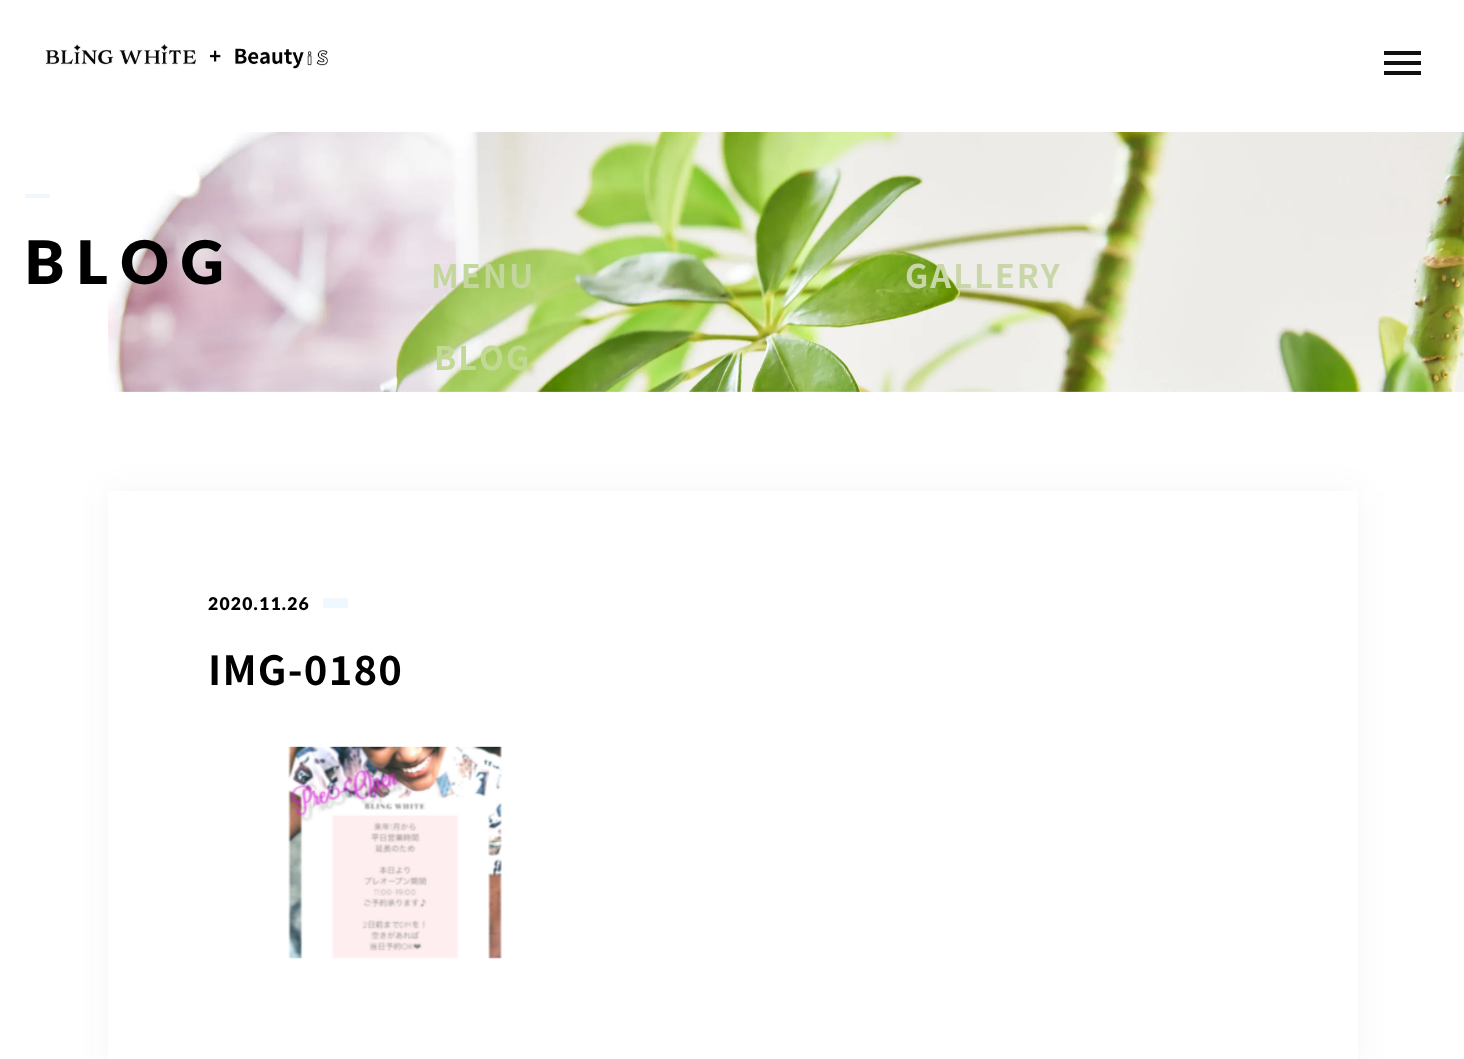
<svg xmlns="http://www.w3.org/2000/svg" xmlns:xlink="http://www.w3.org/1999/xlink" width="1464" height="1059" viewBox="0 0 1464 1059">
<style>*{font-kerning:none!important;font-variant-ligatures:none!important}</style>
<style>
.cls-1{font:900 60px Lato;letter-spacing:12.5px;fill:#000000}
.cls-2{font:900 17.5px Lato;letter-spacing:1.25px;fill:#000000}
.cls-3{font:bold 40px Noto Sans JP;letter-spacing:1.25px;fill:#000000}
.cls-4{font:bold 32.5px Noto Sans JP;letter-spacing:2px;fill:#c3d69b}
.cls-5{font:bold 32.5px Noto Sans JP;letter-spacing:2px;fill:#c9d6aa}
.cls-6{font:bold 32.5px Noto Sans JP;letter-spacing:2px;fill:#c1d993}
</style>
<rect width="100%" height="100%" fill="#ffffff"/>
<image xlink:href="image0.png" x="45" y="43" width="284" height="26"/>
<rect fill="#111111" x="1384" y="51" width="37" height="4"/>
<rect fill="#111111" x="1384" y="61" width="37" height="4"/>
<rect fill="#111111" x="1384" y="71" width="37" height="4"/>
<image xlink:href="image1.png" x="108" y="132" width="1356" height="260"/>
<rect fill="#f0f8ff" x="25" y="194" width="25" height="4"/>
<rect fill="#333333" fill-opacity="0.05" filter="blur(15.5px)" x="108" y="491" width="1250" height="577"/>
<rect fill="#ffffff" x="108" y="491" width="1250" height="568"/>
<rect fill="#f0f8ff" x="323" y="598" width="25" height="10"/>
<image xlink:href="image2.png" x="288" y="746" width="214" height="213"/>
<text class="cls-1" x="25" y="284">BLOG</text>
<text class="cls-2" x="208" y="610">2020.11.26</text>
<text class="cls-3" x="208" y="685">IMG-0180</text>
<text class="cls-4" x="431" y="288">MENU</text>
<text class="cls-5" x="905" y="288">GALLERY</text>
<text class="cls-6" x="434" y="370">BLOG</text>
</svg>
